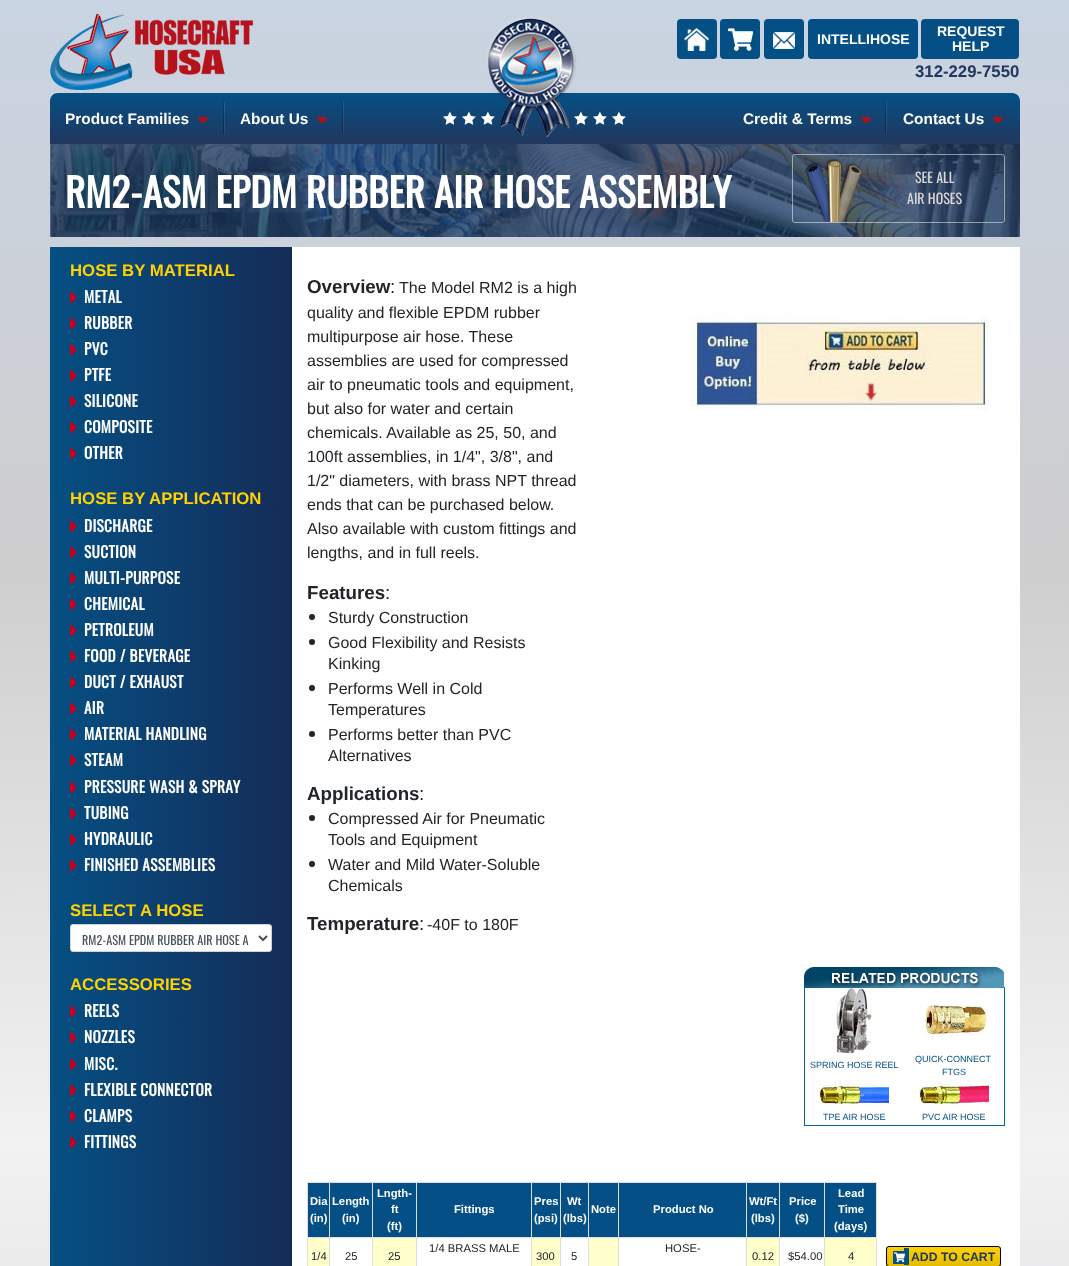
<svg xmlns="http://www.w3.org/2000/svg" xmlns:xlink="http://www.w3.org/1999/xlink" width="1069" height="1266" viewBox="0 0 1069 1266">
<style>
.cls-1{font:bold 14px Liberation Sans;fill:#ffffff}
.cls-2{font:bold 16.75px Liberation Sans;fill:#21375e}
.cls-3{font:bold 15.4px Liberation Sans;fill:#ffffff}
.cls-4{font:bold 39.25px Oswald;fill:#ffffff}
.cls-5{font:14px Oswald;fill:#d9d8d7}
.cls-6{font:bold 16.75px Liberation Sans;fill:#ffd100}
.cls-7{font:bold 15.4px Oswald;letter-spacing:0.3px;fill:#ffffff}
.cls-8{font:12.25px Oswald;fill:#495057}
.cls-9{font:bold 18.75px Liberation Sans;fill:#212529}
.cls-10{font:18.75px Liberation Sans;fill:#212529}
.cls-11{font:16px Liberation Sans;fill:#212529}
.cls-12{font:9px Liberation Sans;fill:#045086}
.cls-13{font:bold 11.25px Liberation Sans;fill:#ffffff}
.cls-14{font:11.25px Liberation Sans;fill:#212529}
.cls-15{font:bold 12.25px Liberation Sans;fill:#21375e}
</style>
<defs>
<linearGradient id="g1" gradientUnits="userSpaceOnUse" x1="534" y1="0" x2="535" y2="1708"><stop offset="0" stop-color="#c9d4e2"/><stop offset="0.33" stop-color="#cfcecf"/><stop offset="0.67" stop-color="#f2f2f2"/><stop offset="1" stop-color="#cfd0d6"/></linearGradient>
<linearGradient id="g2" gradientUnits="userSpaceOnUse" x1="535" y1="93" x2="535" y2="144"><stop offset="0" stop-color="#045086"/><stop offset="1" stop-color="#21375e"/></linearGradient>
<linearGradient id="g3" gradientUnits="userSpaceOnUse" x1="50" y1="938" x2="292" y2="938"><stop offset="0" stop-color="#054f83"/><stop offset="1" stop-color="#152c57"/></linearGradient>
<clipPath id="clip1"><rect x="886" y="1246" width="115" height="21" rx="3"/></clipPath>
<linearGradient id="g4" gradientUnits="userSpaceOnUse" x1="944" y1="1247" x2="944" y2="1266"><stop offset="0" stop-color="#ffd100"/><stop offset="1" stop-color="#e6bc00"/></linearGradient>
</defs>
<rect width="100%" height="100%" fill="#ffffff"/>
<rect fill="url(#g1)" x="0" y="0" width="1069" height="1266"/>
<image xlink:href="image0.png" x="50" y="14" width="203" height="76"/>
<path fill="url(#g2)" d="M58 93H1012C1016.5 93 1020 96.5 1020 101V144H50V101C50 96.5 53.5 93 58 93Z"/>
<image xlink:href="image5.png" x="443" y="111" width="183" height="14"/>
<image xlink:href="image1.png" x="486" y="16" width="91" height="121"/>
<rect fill="#045086" x="677" y="19" width="40" height="40" rx="4"/>
<image xlink:href="image2.png" x="684" y="28" width="25" height="23"/>
<rect fill="#045086" x="720" y="19" width="40" height="40" rx="4"/>
<image xlink:href="image3.png" x="728" y="28" width="26" height="23"/>
<rect fill="#045086" x="764" y="19" width="40" height="40" rx="4"/>
<image xlink:href="image4.png" x="773" y="32" width="22" height="17"/>
<rect fill="#045086" x="808" y="19" width="110" height="40" rx="4"/>
<rect fill="#045086" x="921" y="19" width="98" height="40" rx="4"/>
<image xlink:href="image6.png" x="223" y="102" width="2" height="32"/>
<path fill="#ab1219" d="M197 117H209L203 124Z"/>
<image xlink:href="image6.png" x="342" y="102" width="2" height="32"/>
<path fill="#ab1219" d="M316 117H328L322 124Z"/>
<image xlink:href="image6.png" x="885" y="102" width="2" height="32"/>
<path fill="#ab1219" d="M860 117H872L866 124Z"/>
<path fill="#ab1219" d="M992 117H1004L998 124Z"/>
<image xlink:href="image7.png" x="50" y="144" width="970" height="93"/>
<rect fill="none" stroke="#ffffff" stroke-opacity="0.5" x="792.5" y="154.5" width="212" height="68" rx="2.5"/>
<image xlink:href="image8.png" x="804" y="158" width="58" height="64"/>
<rect fill="url(#g3)" x="50" y="247" width="242" height="1019"/>
<image xlink:href="image9.png" x="70" y="291" width="7" height="13"/>
<image xlink:href="image9.png" x="70" y="317" width="7" height="13"/>
<image xlink:href="image9.png" x="70" y="343" width="7" height="13"/>
<image xlink:href="image9.png" x="70" y="369" width="7" height="13"/>
<image xlink:href="image9.png" x="70" y="395" width="7" height="13"/>
<image xlink:href="image9.png" x="70" y="421" width="7" height="13"/>
<image xlink:href="image9.png" x="70" y="447" width="7" height="13"/>
<image xlink:href="image9.png" x="70" y="520" width="7" height="13"/>
<image xlink:href="image9.png" x="70" y="546" width="7" height="13"/>
<image xlink:href="image9.png" x="70" y="572" width="7" height="13"/>
<image xlink:href="image9.png" x="70" y="598" width="7" height="13"/>
<image xlink:href="image9.png" x="70" y="624" width="7" height="13"/>
<image xlink:href="image9.png" x="70" y="650" width="7" height="13"/>
<image xlink:href="image9.png" x="70" y="676" width="7" height="13"/>
<image xlink:href="image9.png" x="70" y="702" width="7" height="13"/>
<image xlink:href="image9.png" x="70" y="728" width="7" height="13"/>
<image xlink:href="image9.png" x="70" y="754" width="7" height="13"/>
<image xlink:href="image9.png" x="70" y="781" width="7" height="13"/>
<image xlink:href="image9.png" x="70" y="807" width="7" height="13"/>
<image xlink:href="image9.png" x="70" y="833" width="7" height="13"/>
<image xlink:href="image9.png" x="70" y="859" width="7" height="13"/>
<rect fill="#ffffff" stroke="#ced4da" x="70.5" y="924.5" width="201" height="27" rx="2.5"/>
<path fill="none" stroke="#495057" stroke-width="2" d="M259 936L263 940L267 936"/>
<image xlink:href="image9.png" x="70" y="1005" width="7" height="13"/>
<image xlink:href="image9.png" x="70" y="1031" width="7" height="13"/>
<image xlink:href="image9.png" x="70" y="1058" width="7" height="13"/>
<image xlink:href="image9.png" x="70" y="1084" width="7" height="13"/>
<image xlink:href="image9.png" x="70" y="1110" width="7" height="13"/>
<image xlink:href="image9.png" x="70" y="1136" width="7" height="13"/>
<rect fill="#ffffff" x="292" y="247" width="728" height="1019"/>
<circle fill="#212529" cx="312" cy="617" r="3"/>
<circle fill="#212529" cx="312" cy="642" r="3"/>
<circle fill="#212529" cx="312" cy="688" r="3"/>
<circle fill="#212529" cx="312" cy="734" r="3"/>
<circle fill="#212529" cx="312" cy="818" r="3"/>
<circle fill="#212529" cx="312" cy="864" r="3"/>
<image xlink:href="image10.png" x="690" y="313" width="299" height="97"/>
<rect fill="#00649a" x="1004" y="987" width="1" height="139"/>
<rect fill="#00649a" x="804" y="1125" width="201" height="1"/>
<rect fill="#00649a" x="804" y="987" width="1" height="139"/>
<image xlink:href="image11.png" x="804" y="967" width="200" height="21"/>
<image xlink:href="image12.png" x="835" y="988" width="40" height="65"/>
<image xlink:href="image13.png" x="919" y="1005" width="70" height="31"/>
<image xlink:href="image14.png" x="819" y="1080" width="70" height="24"/>
<image xlink:href="image15.png" x="919" y="1080" width="70" height="24"/>
<rect fill="#045086" x="308" y="1183" width="21" height="54"/>
<rect fill="#dddddd" x="824" y="1182" width="53" height="1"/>
<rect fill="#dddddd" x="824" y="1237" width="53" height="1"/>
<rect fill="#dddddd" x="824" y="1237" width="1" height="29"/>
<rect fill="#dddddd" x="779" y="1237" width="46" height="1"/>
<rect fill="#dddddd" x="824" y="1182" width="1" height="56"/>
<rect fill="#dddddd" x="779" y="1182" width="46" height="1"/>
<rect fill="#dddddd" x="779" y="1237" width="1" height="29"/>
<rect fill="#dddddd" x="746" y="1237" width="34" height="1"/>
<rect fill="#dddddd" x="779" y="1182" width="1" height="56"/>
<rect fill="#dddddd" x="746" y="1182" width="34" height="1"/>
<rect fill="#dddddd" x="746" y="1237" width="1" height="29"/>
<rect fill="#dddddd" x="618" y="1237" width="129" height="1"/>
<rect fill="#dddddd" x="746" y="1182" width="1" height="56"/>
<rect fill="#dddddd" x="618" y="1182" width="129" height="1"/>
<rect fill="#dddddd" x="618" y="1237" width="1" height="29"/>
<rect fill="#dddddd" x="588" y="1237" width="31" height="1"/>
<rect fill="#dddddd" x="618" y="1182" width="1" height="56"/>
<rect fill="#dddddd" x="588" y="1182" width="31" height="1"/>
<rect fill="#dddddd" x="588" y="1237" width="1" height="29"/>
<rect fill="#dddddd" x="560" y="1237" width="29" height="1"/>
<rect fill="#dddddd" x="588" y="1182" width="1" height="56"/>
<rect fill="#dddddd" x="560" y="1182" width="29" height="1"/>
<rect fill="#dddddd" x="560" y="1237" width="1" height="29"/>
<rect fill="#dddddd" x="531" y="1237" width="30" height="1"/>
<rect fill="#dddddd" x="560" y="1182" width="1" height="56"/>
<rect fill="#dddddd" x="531" y="1182" width="30" height="1"/>
<rect fill="#dddddd" x="531" y="1237" width="1" height="29"/>
<rect fill="#dddddd" x="416" y="1237" width="116" height="1"/>
<rect fill="#dddddd" x="531" y="1182" width="1" height="56"/>
<rect fill="#dddddd" x="416" y="1182" width="116" height="1"/>
<rect fill="#dddddd" x="416" y="1237" width="1" height="29"/>
<rect fill="#dddddd" x="372" y="1237" width="45" height="1"/>
<rect fill="#dddddd" x="416" y="1182" width="1" height="56"/>
<rect fill="#dddddd" x="372" y="1182" width="45" height="1"/>
<rect fill="#dddddd" x="372" y="1237" width="1" height="29"/>
<rect fill="#dddddd" x="329" y="1237" width="44" height="1"/>
<rect fill="#dddddd" x="372" y="1182" width="1" height="56"/>
<rect fill="#dddddd" x="329" y="1182" width="44" height="1"/>
<rect fill="#dddddd" x="329" y="1237" width="1" height="29"/>
<rect fill="#dddddd" x="307" y="1237" width="23" height="1"/>
<rect fill="#dddddd" x="329" y="1182" width="1" height="56"/>
<rect fill="#dddddd" x="307" y="1182" width="23" height="1"/>
<rect fill="#dddddd" x="307" y="1237" width="1" height="29"/>
<rect fill="#dddddd" x="307" y="1182" width="1" height="56"/>
<rect fill="#045086" x="330" y="1183" width="42" height="54"/>
<rect fill="#045086" x="373" y="1183" width="43" height="54"/>
<rect fill="#045086" x="417" y="1183" width="114" height="54"/>
<rect fill="#045086" x="532" y="1183" width="28" height="54"/>
<rect fill="#045086" x="561" y="1183" width="27" height="54"/>
<rect fill="#045086" x="589" y="1183" width="29" height="54"/>
<rect fill="#045086" x="619" y="1183" width="127" height="54"/>
<rect fill="#045086" x="747" y="1183" width="32" height="54"/>
<rect fill="#045086" x="780" y="1183" width="44" height="54"/>
<rect fill="#045086" x="825" y="1183" width="51" height="54"/>
<rect fill="#dddddd" x="876" y="1237" width="1" height="29"/>
<rect fill="#dddddd" x="876" y="1182" width="1" height="56"/>
<rect fill="#ffffcc" x="589" y="1238" width="29" height="28"/>
<rect fill="#ffffcc" x="308" y="1238" width="21" height="28"/>
<rect fill="#ffffcc" x="373" y="1238" width="43" height="28"/>
<rect fill="#ffffcc" x="532" y="1238" width="28" height="28"/>
<rect fill="#ffffcc" x="747" y="1238" width="32" height="28"/>
<rect fill="#ffffcc" x="825" y="1238" width="51" height="28"/>
<g clip-path="url(#clip1)">
<rect fill="url(#g4)" x="886" y="1247" width="115" height="19"/>
</g>
<rect fill="none" stroke="#000000" x="886.5" y="1246.5" width="114" height="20" rx="2.5"/>
<path fill="#045086" d="M894 1251H905V1264H894C893.5 1264 893 1263.5 893 1263V1252C893 1251.5 893.5 1251 894 1251Z"/>
<path fill="#045086" d="M904 1248H908C908.5 1248 909 1248.5 909 1249V1264C909 1264.5 908.5 1265 908 1265H904Z"/>
<image xlink:href="image16.png" x="894" y="1252" width="11" height="11"/>
<text class="cls-1" x="817" y="44">INTELLIHOSE</text>
<text class="cls-1" x="937" y="36">REQUEST</text>
<text class="cls-1" x="952" y="51">HELP</text>
<text class="cls-2" x="915" y="77">312-229-7550</text>
<text class="cls-3" x="65" y="124">Product Families</text>
<text class="cls-3" x="240" y="124">About Us</text>
<text class="cls-3" x="743" y="124">Credit &amp; Terms</text>
<text class="cls-3" x="903" y="124">Contact Us</text>
<text class="cls-4" x="65" y="208">RM2-ASM EPDM RUBBER AIR HOSE ASSEMBLY</text>
<text class="cls-5" x="915" y="183">SEE ALL</text>
<text class="cls-5" x="907" y="204">AIR HOSES</text>
<text class="cls-6" x="70" y="276">HOSE BY MATERIAL</text>
<text class="cls-7"><tspan x="84" y="303">METAL</tspan><tspan x="84" y="329">RUBBER</tspan><tspan x="84" y="355">PVC</tspan><tspan x="84" y="381">PTFE</tspan><tspan x="84" y="407">SILICONE</tspan><tspan x="84" y="433">COMPOSITE</tspan><tspan x="84" y="459">OTHER</tspan></text>
<text class="cls-6" x="70" y="504">HOSE BY APPLICATION</text>
<text class="cls-7"><tspan x="84" y="532">DISCHARGE</tspan><tspan x="84" y="558">SUCTION</tspan><tspan x="84" y="584">MULTI-PURPOSE</tspan><tspan x="84" y="610">CHEMICAL</tspan><tspan x="84" y="636">PETROLEUM</tspan><tspan x="84" y="662">FOOD / BEVERAGE</tspan><tspan x="84" y="688">DUCT / EXHAUST</tspan><tspan x="84" y="714">AIR</tspan><tspan x="84" y="740">MATERIAL HANDLING</tspan><tspan x="84" y="766">STEAM</tspan><tspan x="84" y="793">PRESSURE WASH &amp; SPRAY</tspan><tspan x="84" y="819">TUBING</tspan><tspan x="84" y="845">HYDRAULIC</tspan><tspan x="84" y="871">FINISHED ASSEMBLIES</tspan></text>
<text class="cls-6" x="70" y="916">SELECT A HOSE</text>
<text class="cls-8" x="82" y="945">RM2-ASM EPDM RUBBER AIR HOSE A</text>
<text class="cls-6" x="70" y="990">ACCESSORIES</text>
<text class="cls-7"><tspan x="84" y="1017">REELS</tspan><tspan x="84" y="1043">NOZZLES</tspan><tspan x="84" y="1070">MISC.</tspan><tspan x="84" y="1096">FLEXIBLE CONNECTOR</tspan><tspan x="84" y="1122">CLAMPS</tspan><tspan x="84" y="1148">FITTINGS</tspan></text>
<text class="cls-9" x="307" y="293">Overview</text>
<text class="cls-10" x="390" y="293">:</text>
<text class="cls-11" x="399" y="293">The Model RM2 is a high</text>
<text class="cls-11"><tspan x="307" y="318">quality and flexible EPDM rubber</tspan><tspan x="307" y="342">multipurpose air hose. These</tspan><tspan x="307" y="366">assemblies are used for compressed</tspan><tspan x="307" y="390">air to pneumatic tools and equipment,</tspan><tspan x="307" y="414">but also for water and certain</tspan><tspan x="307" y="438">chemicals. Available as 25, 50, and</tspan><tspan x="307" y="462">100ft assemblies, in 1/4", 3/8", and</tspan><tspan x="307" y="486">1/2" diameters, with brass NPT thread</tspan><tspan x="307" y="510">ends that can be purchased below.</tspan><tspan x="307" y="534">Also available with custom fittings and</tspan><tspan x="307" y="558">lengths, and in full reels.</tspan></text>
<text class="cls-9" x="307" y="599">Features</text>
<text class="cls-10" x="385" y="599">:</text>
<text class="cls-11"><tspan x="328" y="623">Sturdy Construction</tspan><tspan x="328" y="648">Good Flexibility and Resists</tspan><tspan x="328" y="669">Kinking</tspan><tspan x="328" y="694">Performs Well in Cold</tspan><tspan x="328" y="715">Temperatures</tspan><tspan x="328" y="740">Performs better than PVC</tspan><tspan x="328" y="761">Alternatives</tspan></text>
<text class="cls-9" x="307" y="800">Applications</text>
<text class="cls-10" x="419" y="800">:</text>
<text class="cls-11"><tspan x="328" y="824">Compressed Air for Pneumatic</tspan><tspan x="328" y="845">Tools and Equipment</tspan><tspan x="328" y="870">Water and Mild Water-Soluble</tspan><tspan x="328" y="891">Chemicals</tspan></text>
<text class="cls-9" x="307" y="930">Temperature</text>
<text class="cls-10" x="419" y="930">:</text>
<text class="cls-11" x="427" y="930">-40F to 180F</text>
<text class="cls-12" x="810" y="1068">SPRING HOSE REEL</text>
<text class="cls-12" x="915" y="1062">QUICK-CONNECT</text>
<text class="cls-12" x="942" y="1075">FTGS</text>
<text class="cls-12" x="823" y="1120">TPE AIR HOSE</text>
<text class="cls-12" x="922" y="1120">PVC AIR HOSE</text>
<text class="cls-13"><tspan x="310" y="1205">Dia</tspan><tspan x="310" y="1222">(in)</tspan></text>
<text class="cls-13" x="332" y="1205">Length</text>
<text class="cls-13" x="342" y="1222">(in)</text>
<text class="cls-13" x="377" y="1197">Lngth-</text>
<text class="cls-13" x="391" y="1213">ft</text>
<text class="cls-13" x="387" y="1230">(ft)</text>
<text class="cls-13" x="454" y="1213">Fittings</text>
<text class="cls-13"><tspan x="534" y="1205">Pres</tspan><tspan x="534" y="1222">(psi)</tspan></text>
<text class="cls-13" x="567" y="1205">Wt</text>
<text class="cls-13" x="563" y="1222">(lbs)</text>
<text class="cls-13" x="591" y="1213">Note</text>
<text class="cls-13" x="653" y="1213">Product No</text>
<text class="cls-13" x="749" y="1205">Wt/Ft</text>
<text class="cls-13" x="751" y="1222">(lbs)</text>
<text class="cls-13" x="789" y="1205">Price</text>
<text class="cls-13" x="795" y="1222">($)</text>
<text class="cls-13"><tspan x="838" y="1197">Lead</tspan><tspan x="838" y="1213">Time</tspan></text>
<text class="cls-13" x="834" y="1230">(days)</text>
<text class="cls-14" x="429" y="1252">1/4 BRASS MALE</text>
<text class="cls-14" x="665" y="1252">HOSE-</text>
<text class="cls-14" x="311" y="1260">1/4</text>
<text class="cls-14" x="345" y="1260">25</text>
<text class="cls-14" x="388" y="1260">25</text>
<text class="cls-14" x="536" y="1260">300</text>
<text class="cls-14" x="571" y="1260">5</text>
<text class="cls-14" x="752" y="1260">0.12</text>
<text class="cls-14" x="788" y="1260">$54.00</text>
<text class="cls-14" x="848" y="1260">4</text>
<text class="cls-15" x="911" y="1261">ADD TO CART</text>
</svg>
